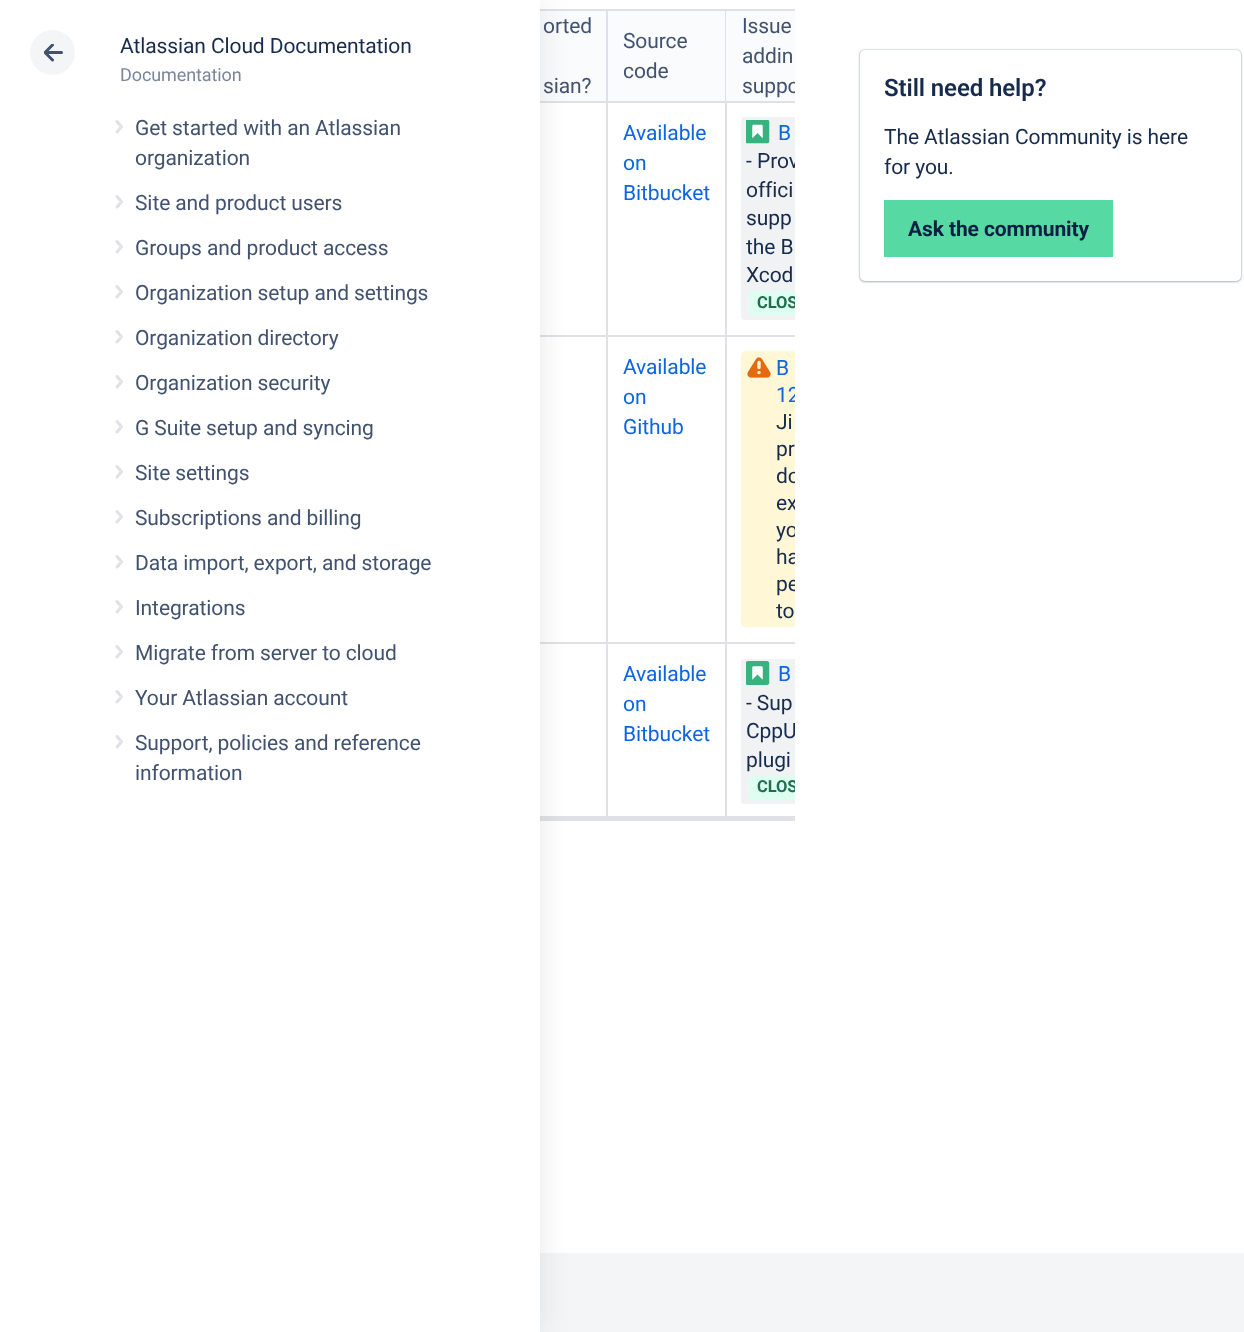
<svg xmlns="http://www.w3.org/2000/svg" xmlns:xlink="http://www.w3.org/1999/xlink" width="1244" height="1332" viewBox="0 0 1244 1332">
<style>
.cls-1{font:21px Roboto;letter-spacing:-0.1px;fill:#172b4d}
.cls-2{font:18px Roboto;letter-spacing:-0.1px;fill:#7a869a}
.cls-3{font:21px Roboto;letter-spacing:-0.1px;fill:#42526e}
.cls-4{font:21px Roboto;letter-spacing:-0.1px;fill:#0c66e4}
.cls-5{font:bold 16.5px Roboto;letter-spacing:-0.1px;fill:#216e4e}
.cls-6{font:600 24px Roboto;letter-spacing:-0.1px;fill:#172b4d}
.cls-7{font:bold 21px Roboto;letter-spacing:-0.1px;fill:#091e42}
</style>
<defs>
<clipPath id="clip1"><rect x="105" y="0" width="690" height="821"/></clipPath>
<clipPath id="clip2"><rect x="44" y="44" width="19" height="18"/></clipPath>
</defs>
<rect width="100%" height="100%" fill="#ffffff"/>
<g clip-path="url(#clip1)">
<rect fill="none" stroke="#dfe1e6" stroke-width="2" x="106" y="10" width="795" height="810" rx="4"/>
</g>
<rect fill="#dfe1e6" x="540" y="816" width="255" height="3"/>
<rect fill="#fafbfc" x="540" y="11" width="66" height="90"/>
<rect fill="#dfe1e6" x="606" y="11" width="2" height="91"/>
<rect fill="#dfe1e6" x="540" y="101" width="68" height="2"/>
<rect fill="#dfe1e6" x="606" y="102" width="2" height="234"/>
<rect fill="#dfe1e6" x="540" y="335" width="68" height="2"/>
<rect fill="#dfe1e6" x="606" y="336" width="2" height="483"/>
<rect fill="#dfe1e6" x="540" y="642" width="68" height="2"/>
<rect fill="#f4f5f7" x="540" y="1253" width="704" height="79"/>
<rect fill="#161616" fill-opacity="0.1" filter="blur(15px)" x="0" y="0" width="540" height="1332"/>
<rect fill="#ffffff" x="0" y="0" width="540" height="1332"/>
<circle fill="#f4f5f7" cx="52.5" cy="52.5" r="22.5"/>
<rect fill="#42526e" x="45" y="51" width="18" height="3" rx="1.5"/>
<g clip-path="url(#clip2)">
<path fill="none" stroke="#42526e" stroke-width="3" stroke-linecap="round" stroke-linejoin="round" d="M52.5 60L45 52.5L52.5 45"/>
</g>
<image xlink:href="image0.png" x="115" y="120" width="8" height="14"/>
<image xlink:href="image0.png" x="115" y="195" width="8" height="14"/>
<image xlink:href="image0.png" x="115" y="240" width="8" height="14"/>
<image xlink:href="image0.png" x="115" y="285" width="8" height="14"/>
<image xlink:href="image0.png" x="115" y="330" width="8" height="14"/>
<image xlink:href="image0.png" x="115" y="375" width="8" height="14"/>
<image xlink:href="image0.png" x="115" y="420" width="8" height="14"/>
<image xlink:href="image0.png" x="115" y="465" width="8" height="14"/>
<image xlink:href="image0.png" x="115" y="510" width="8" height="14"/>
<image xlink:href="image0.png" x="115" y="555" width="8" height="14"/>
<image xlink:href="image0.png" x="115" y="600" width="8" height="14"/>
<image xlink:href="image0.png" x="115" y="645" width="8" height="14"/>
<image xlink:href="image0.png" x="115" y="690" width="8" height="14"/>
<image xlink:href="image0.png" x="115" y="735" width="8" height="14"/>
<rect fill="#fafbfc" x="608" y="11" width="117" height="90"/>
<rect fill="#dfe1e6" x="725" y="11" width="1" height="91"/>
<rect fill="#dfe1e6" x="608" y="101" width="187" height="2"/>
<rect fill="#fafbfc" x="726" y="11" width="69" height="90"/>
<rect fill="#dfe1e6" x="725" y="102" width="2" height="234"/>
<rect fill="#dfe1e6" x="608" y="335" width="187" height="2"/>
<path fill="#f0f2f4" d="M744 117H795V320H744C742.5 320 741 318.5 741 317V120C741 118.5 742.5 117 744 117Z"/>
<image xlink:href="image1.png" x="746" y="120" width="24" height="24"/>
<path fill="#dcfff1" d="M754 291H795V315H754C751 315 749 313 749 310V296C749 293 751 291 754 291Z"/>
<rect fill="#dfe1e6" x="725" y="336" width="2" height="483"/>
<rect fill="#dfe1e6" x="608" y="642" width="187" height="2"/>
<path fill="#fff7d6" d="M746 351H795V627H746C743 627 741 625 741 622V356C741 353 743 351 746 351Z"/>
<image xlink:href="image2.png" x="747" y="357" width="24" height="21"/>
<path fill="#f0f2f4" d="M744 659H795V804H744C742.5 804 741 802.5 741 801V662C741 660.5 742.5 659 744 659Z"/>
<image xlink:href="image3.png" x="746" y="661" width="24" height="24"/>
<path fill="#dcfff1" d="M754 776H795V800H754C751 800 749 798 749 795V781C749 778 751 776 754 776Z"/>
<rect fill="#091e42" fill-opacity="0.31" filter="blur(1px)" x="860" y="50" width="381" height="231" rx="5"/>
<rect fill="#091e42" fill-opacity="0.25" filter="blur(1px)" x="860" y="51" width="381" height="231" rx="5"/>
<rect fill="#ffffff" x="860" y="50" width="381" height="231" rx="5"/>
<rect fill="#57d9a3" x="884" y="200" width="229" height="57"/>
<text class="cls-1" x="120" y="53">Atlassian Cloud Documentation</text>
<text class="cls-2" x="120" y="81">Documentation</text>
<text class="cls-3"><tspan x="135" y="135">Get started with an Atlassian</tspan><tspan x="135" y="165">organization</tspan></text>
<text class="cls-3" x="135" y="210">Site and product users</text>
<text class="cls-3" x="135" y="255">Groups and product access</text>
<text class="cls-3" x="135" y="300">Organization setup and settings</text>
<text class="cls-3" x="135" y="345">Organization directory</text>
<text class="cls-3" x="135" y="390">Organization security</text>
<text class="cls-3" x="135" y="435">G Suite setup and syncing</text>
<text class="cls-3" x="135" y="480">Site settings</text>
<text class="cls-3" x="135" y="525">Subscriptions and billing</text>
<text class="cls-3" x="135" y="570">Data import, export, and storage</text>
<text class="cls-3" x="135" y="615">Integrations</text>
<text class="cls-3" x="135" y="660">Migrate from server to cloud</text>
<text class="cls-3" x="135" y="705">Your Atlassian account</text>
<text class="cls-3"><tspan x="135" y="750">Support, policies and reference</tspan><tspan x="135" y="780">information</tspan></text>
<text class="cls-3" x="543" y="33">orted</text>
<text class="cls-3" x="543" y="93">sian?</text>
<text class="cls-3"><tspan x="623" y="48">Source</tspan><tspan x="623" y="78">code</tspan></text>
<text class="cls-3"><tspan x="742" y="33">Issue</tspan><tspan x="742" y="63">addin</tspan></text>
<g clip-path="url(#clip1)">
<text class="cls-3" x="742" y="93">suppo</text>
</g>
<text class="cls-4"><tspan x="623" y="140">Available</tspan><tspan x="623" y="170">on</tspan><tspan x="623" y="200">Bitbucket</tspan></text>
<text class="cls-4" x="778" y="140">B</text>
<text class="cls-1" x="746" y="168">-</text>
<g clip-path="url(#clip1)">
<text class="cls-1" x="757" y="168">Prov</text>
</g>
<text class="cls-1"><tspan x="746" y="197">offici</tspan><tspan x="746" y="225">supp</tspan><tspan x="746" y="254">the B</tspan><tspan x="746" y="282">Xcod</tspan></text>
<g clip-path="url(#clip1)">
<text class="cls-5" x="757" y="308">CLOS</text>
</g>
<text class="cls-4"><tspan x="623" y="374">Available</tspan><tspan x="623" y="404">on</tspan><tspan x="623" y="434">Github</tspan></text>
<text class="cls-4" x="776" y="375">B</text>
<g clip-path="url(#clip1)">
<text class="cls-4" x="776" y="402">12</text>
</g>
<text class="cls-1"><tspan x="776" y="429">Ji</tspan><tspan x="776" y="456">pr</tspan></text>
<g clip-path="url(#clip1)">
<text class="cls-1"><tspan x="776" y="483">do</tspan><tspan x="776" y="510">ex</tspan><tspan x="776" y="537">yo</tspan><tspan x="776" y="564">ha</tspan><tspan x="776" y="591">pe</tspan></text>
</g>
<text class="cls-1" x="776" y="618">to</text>
<text class="cls-4"><tspan x="623" y="681">Available</tspan><tspan x="623" y="711">on</tspan><tspan x="623" y="741">Bitbucket</tspan></text>
<text class="cls-4" x="778" y="681">B</text>
<text class="cls-1" x="746" y="710">- Sup</text>
<g clip-path="url(#clip1)">
<text class="cls-1" x="746" y="738">CppU</text>
</g>
<text class="cls-1" x="746" y="767">plugi</text>
<g clip-path="url(#clip1)">
<text class="cls-5" x="757" y="792">CLOS</text>
</g>
<text class="cls-6" x="884" y="96">Still need help?</text>
<text class="cls-1"><tspan x="884" y="144">The Atlassian Community is here</tspan><tspan x="884" y="174">for you.</tspan></text>
<text class="cls-7" x="908" y="236">Ask the community</text>
</svg>
